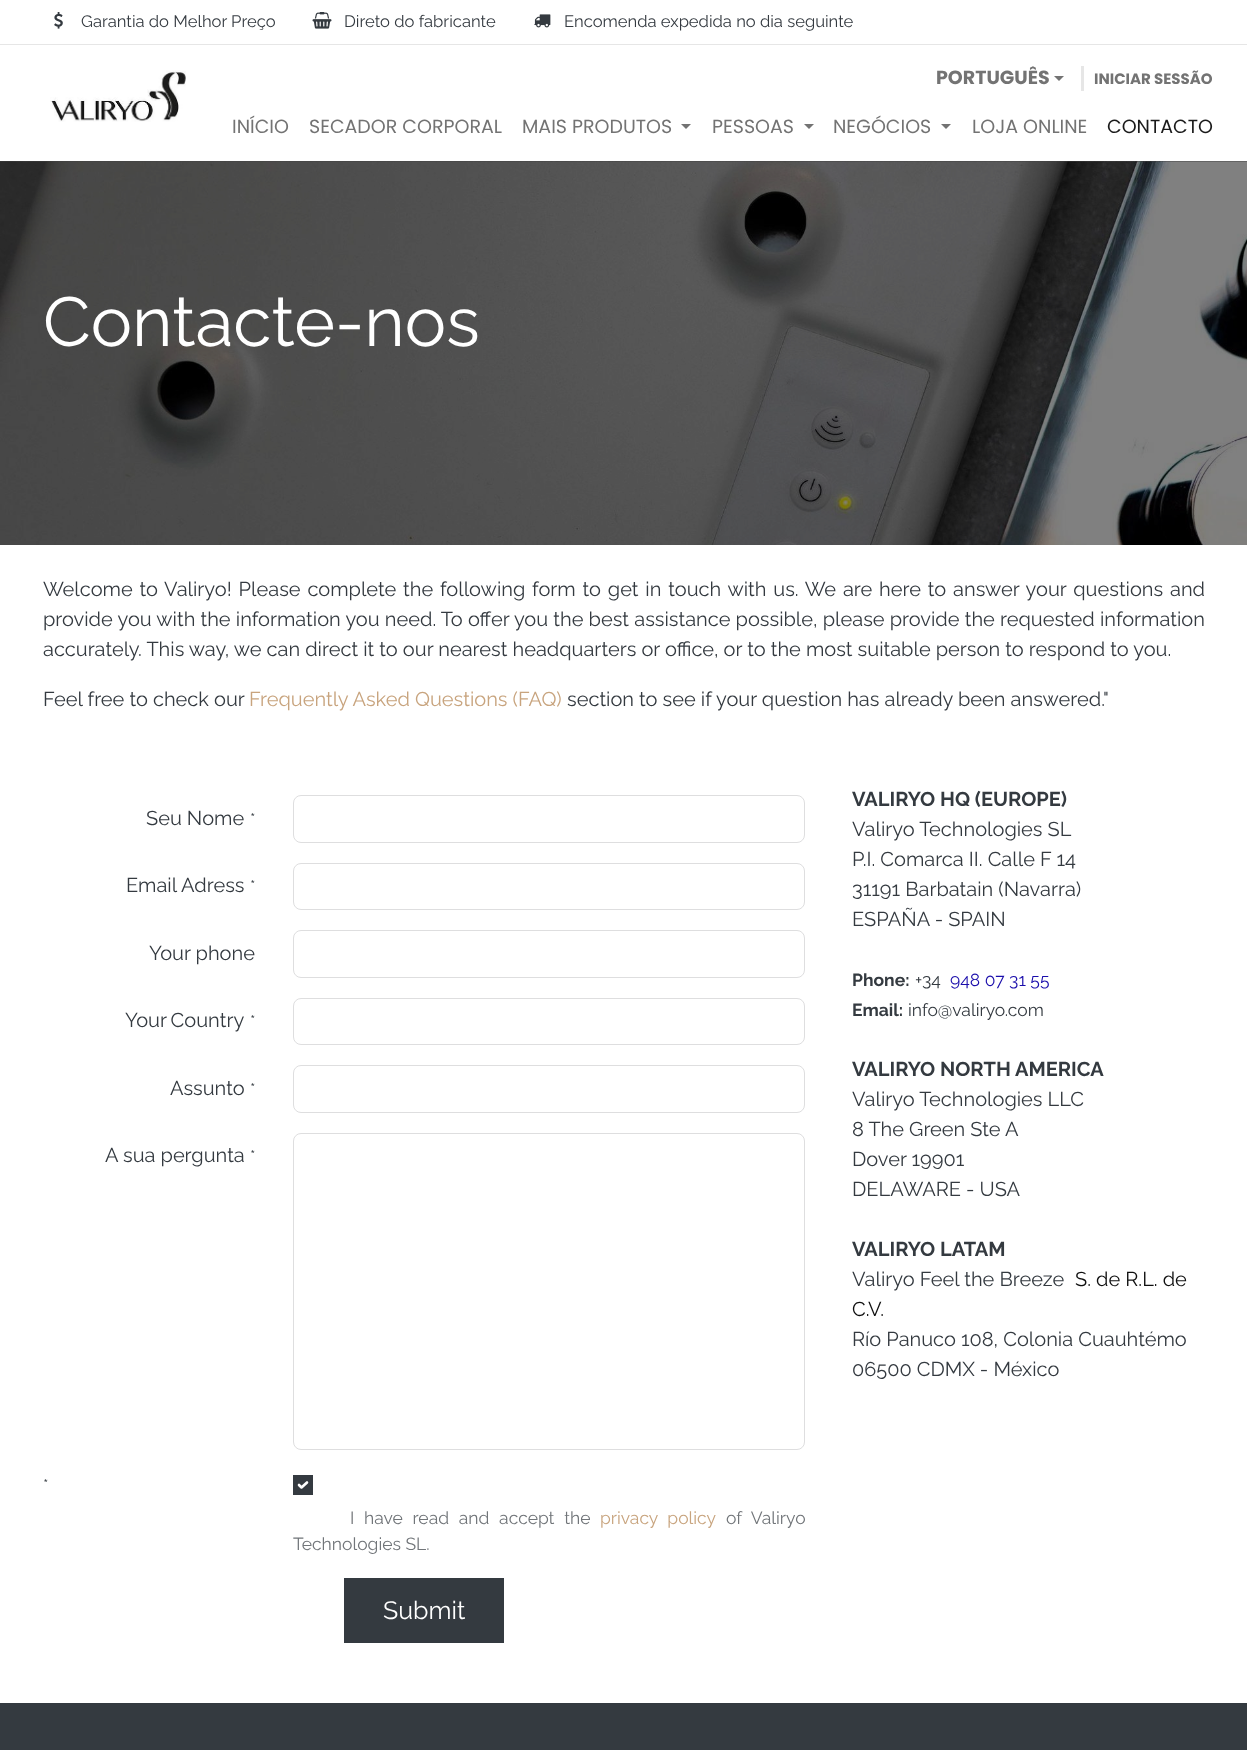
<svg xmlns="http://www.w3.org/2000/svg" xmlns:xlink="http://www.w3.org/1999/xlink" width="1247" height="1750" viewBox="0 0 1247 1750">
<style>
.cls-1{font:16.6px Raleway;fill:#343a40}
.cls-2{font:bold 19px Poppins;fill:#737373}
.cls-3{font:bold 15px Poppins;fill:#737373}
.cls-4{font:19px Poppins;fill:#737373}
.cls-5{font:19px Poppins;fill:#1a1a1a}
.cls-6{font:69.5px Raleway;fill:#ffffff}
.cls-7{font:20px Raleway;fill:#343a40}
.cls-8{font:20px Raleway;fill:#c8a47e}
.cls-9{font:17px Raleway;fill:#343a40}
.cls-10{font:17.5px Raleway;fill:#717579}
.cls-11{font:17.5px Raleway;fill:#c8a47e}
.cls-12{font:25px Raleway;fill:#ffffff}
.cls-13{font:bold 20px Raleway;fill:#343a40}
.cls-14{font:bold 17.5px Raleway;fill:#343a40}
.cls-15{font:17.5px Raleway;fill:#343a40}
.cls-16{font:17.5px Raleway;fill:#1a0dab}
.cls-17{font:20px Raleway;fill:#0f0f0f}
</style>
<rect width="100%" height="100%" fill="#ffffff"/>
<rect fill="#e6e6e6" x="0" y="44" width="1247" height="1"/>
<image xlink:href="image0.png" x="54" y="12" width="9" height="17"/>
<image xlink:href="image1.png" x="312" y="12" width="20" height="17"/>
<image xlink:href="image2.png" x="534" y="14" width="17" height="14"/>
<image xlink:href="image3.png" x="50" y="70" width="136" height="52"/>
<path fill="#737373" d="M1054 76H1064L1059 81Z"/>
<rect fill="#e6e6e6" x="1081" y="66" width="3" height="25"/>
<path fill="#737373" d="M681 124H691L686 129Z"/>
<path fill="#737373" d="M804 124H814L809 129Z"/>
<path fill="#737373" d="M941 124H951L946 129Z"/>
<rect fill="#404040" x="0" y="161" width="1247" height="1"/>
<image xlink:href="image4.png" x="0" y="161" width="1247" height="384"/>
<rect fill="none" stroke="#dededf" x="293.5" y="795.5" width="511" height="47" rx="7.5"/>
<rect fill="none" stroke="#dededf" x="293.5" y="863.5" width="511" height="46" rx="7.5"/>
<rect fill="none" stroke="#dededf" x="293.5" y="930.5" width="511" height="47" rx="7.5"/>
<rect fill="none" stroke="#dededf" x="293.5" y="998.5" width="511" height="46" rx="7.5"/>
<rect fill="none" stroke="#dededf" x="293.5" y="1065.5" width="511" height="47" rx="7.5"/>
<rect fill="none" stroke="#dededf" x="293.5" y="1133.5" width="511" height="316" rx="7.5"/>
<rect fill="#343a40" x="293" y="1475" width="20" height="20"/>
<path fill="none" stroke="#ffffff" stroke-width="2.6" stroke-linecap="round" stroke-linejoin="round" d="M299 1485L301.5 1487.5L307 1482.5"/>
<rect fill="#343a40" x="344" y="1578" width="160" height="65"/>
<rect fill="#343a40" x="0" y="1703" width="1247" height="47"/>
<text class="cls-1" x="81" y="27">Garantia do Melhor Preço</text>
<text class="cls-1" x="344" y="27">Direto do fabricante</text>
<text class="cls-1" x="564" y="27">Encomenda expedida no dia seguinte</text>
<text class="cls-2" x="936" y="84">PORTUGUÊS</text>
<text class="cls-3" x="1094" y="84">INICIAR SESSÃO</text>
<text class="cls-4" x="232" y="133">INÍCIO</text>
<text class="cls-4" x="309" y="133">SECADOR CORPORAL</text>
<text class="cls-4" x="522" y="133">MAIS PRODUTOS</text>
<text class="cls-4" x="712" y="133">PESSOAS</text>
<text class="cls-4" x="833" y="133">NEGÓCIOS</text>
<text class="cls-4" x="972" y="133">LOJA ONLINE</text>
<text class="cls-5" x="1107" y="133">CONTACTO</text>
<text class="cls-6" x="43" y="346">Contacte-nos</text>
<text class="cls-7"><tspan x="43" y="596" word-spacing="1.75">Welcome to Valiryo! Please complete the following form to get in touch with us. We are here to answer your questions and</tspan><tspan x="43" y="626" word-spacing="0.1">provide you with the information you need. To offer you the best assistance possible, please provide the requested information</tspan><tspan x="43" y="656">accurately. This way, we can direct it to our nearest headquarters or office, or to the most suitable person to respond to you.</tspan></text>
<text class="cls-7" x="43" y="706">Feel free to check our</text>
<text class="cls-8" x="249" y="706">Frequently Asked Questions (FAQ)</text>
<text class="cls-7" x="567" y="706">section to see if your question has already been answered."</text>
<text class="cls-7" x="146" y="825">Seu Nome</text>
<text class="cls-9" x="250" y="825">*</text>
<text class="cls-7" x="126" y="892">Email Adress</text>
<text class="cls-9" x="250" y="892">*</text>
<text class="cls-7" x="149" y="960">Your phone</text>
<text class="cls-7" x="125" y="1027" word-spacing="-1">Your Country</text>
<text class="cls-9" x="250" y="1027">*</text>
<text class="cls-7" x="170" y="1095">Assunto</text>
<text class="cls-9" x="250" y="1095">*</text>
<text class="cls-7" x="105" y="1162">A sua pergunta</text>
<text class="cls-9" x="250" y="1162">*</text>
<text class="cls-9" x="43" y="1491">*</text>
<text class="cls-10" x="350" y="1524" word-spacing="5.25">I have read and accept the</text>
<text class="cls-11" x="600" y="1524" word-spacing="5">privacy policy</text>
<text class="cls-10" x="726" y="1524" word-spacing="5.25">of Valiryo</text>
<text class="cls-10" x="293" y="1550">Technologies SL.</text>
<text class="cls-12" x="383" y="1619">Submit</text>
<text class="cls-13" x="852" y="806">VALIRYO HQ (EUROPE)</text>
<text class="cls-7"><tspan x="852" y="836">Valiryo Technologies SL</tspan><tspan x="852" y="866">P.I. Comarca II. Calle F 14</tspan><tspan x="852" y="896">31191 Barbatain (Navarra)</tspan><tspan x="852" y="926">ESPAÑA - SPAIN</tspan></text>
<text class="cls-14" x="852" y="986">Phone:</text>
<text class="cls-15" x="915" y="986">+34</text>
<text class="cls-16" x="950" y="986">948 07 31 55</text>
<text class="cls-14" x="852" y="1016">Email:</text>
<text class="cls-15" x="908" y="1016">info@valiryo.com</text>
<text class="cls-13" x="852" y="1076">VALIRYO NORTH AMERICA</text>
<text class="cls-7"><tspan x="852" y="1106">Valiryo Technologies LLC</tspan><tspan x="852" y="1136">8 The Green Ste A</tspan><tspan x="852" y="1166">Dover 19901</tspan><tspan x="852" y="1196">DELAWARE - USA</tspan></text>
<text class="cls-13" x="852" y="1256">VALIRYO LATAM</text>
<text class="cls-7" x="852" y="1286">Valiryo Feel the Breeze</text>
<text class="cls-17" x="1075" y="1286">S. de R.L. de</text>
<text class="cls-17" x="852" y="1316">C.V.</text>
<text class="cls-7"><tspan x="852" y="1346">Río Panuco 108, Colonia Cuauhtémo</tspan><tspan x="852" y="1376">06500 CDMX - México</tspan></text>
</svg>
